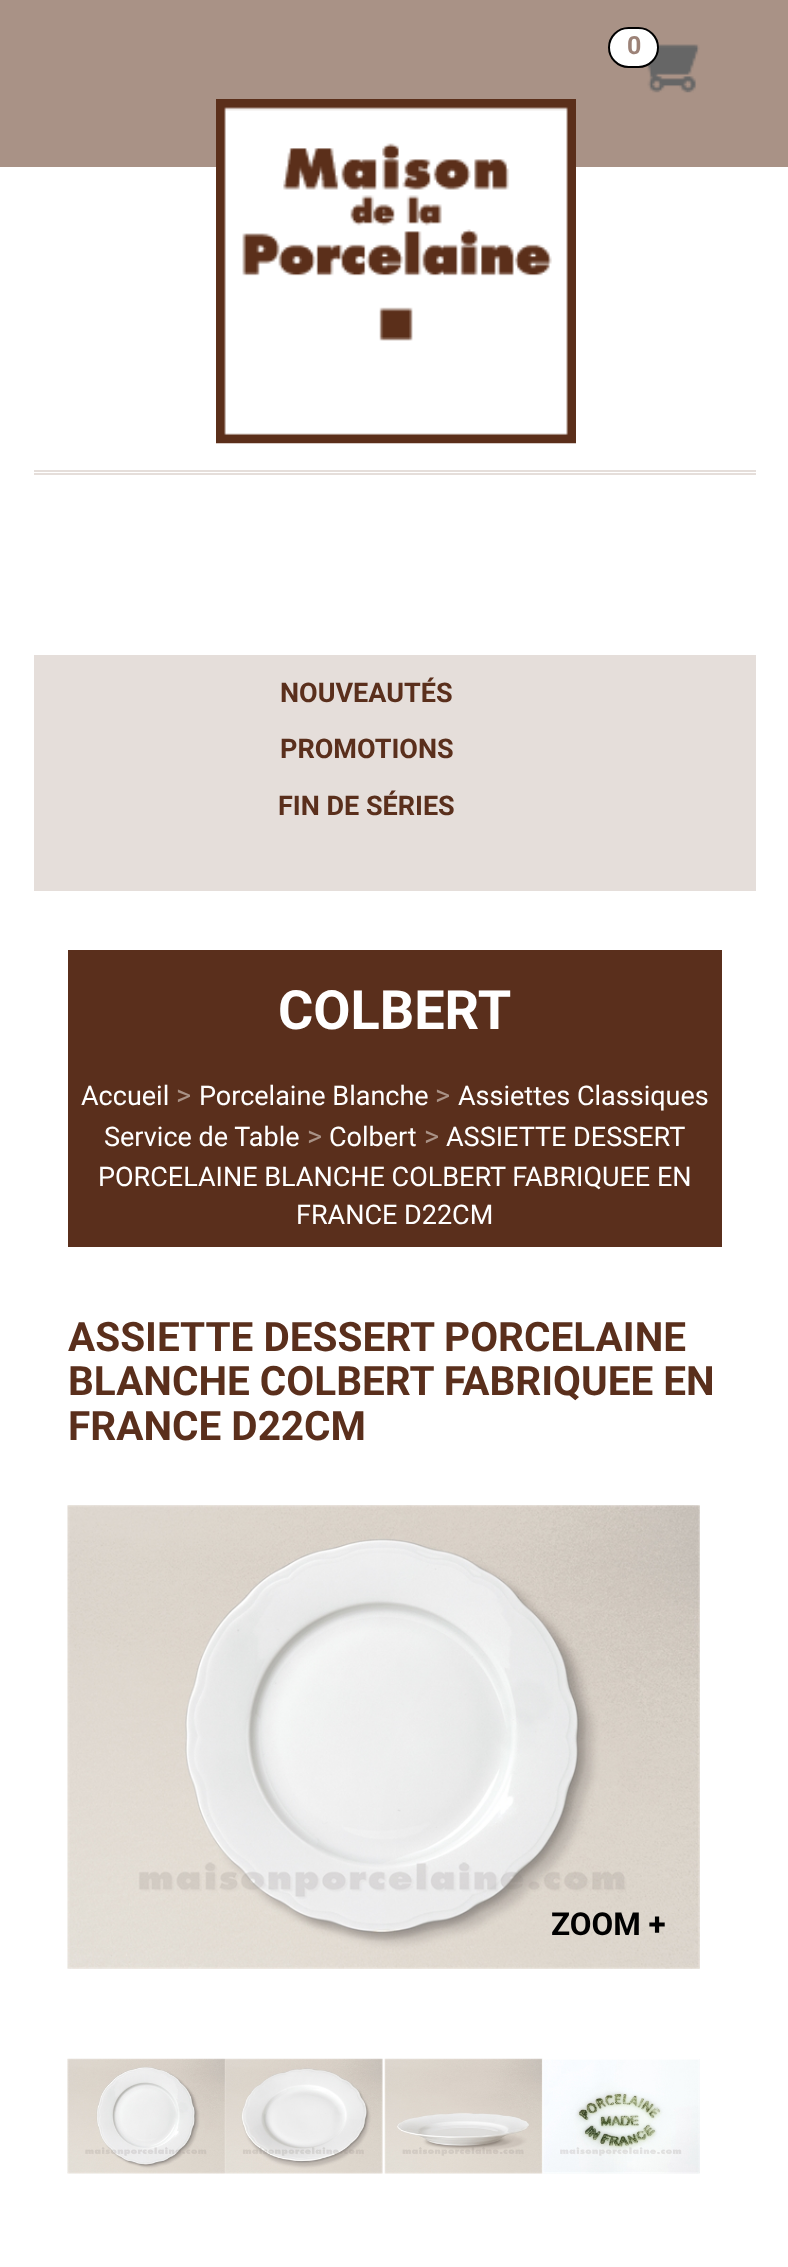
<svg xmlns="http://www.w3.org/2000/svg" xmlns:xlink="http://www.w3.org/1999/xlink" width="788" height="2267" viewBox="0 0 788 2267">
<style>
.cls-1{font:bold 25px Roboto;fill:#9c8277}
.cls-2{font:bold 27px Roboto;fill:#5a2f1c}
.cls-3{font:bold 54px Roboto;fill:#ffffff}
.cls-4{font:27px Roboto;fill:#ffffff}
.cls-5{font:29px Roboto;fill:#a99286}
.cls-6{font:bold 40.5px Roboto;fill:#5a2f1c}
.cls-7{font:bold 31.5px Roboto;fill:#000000}
</style>
<rect width="100%" height="100%" fill="#ffffff"/>
<rect fill="#a99286" x="0" y="0" width="788" height="167"/>
<image xlink:href="image0.png" x="647" y="44" width="53" height="49"/>
<rect fill="#ffffff" stroke="#000000" stroke-width="2" x="609" y="28" width="49" height="39" rx="19.5"/>
<image xlink:href="image1.png" x="216" y="99" width="360" height="345"/>
<rect fill="#e5deda" x="34" y="470" width="722" height="2"/>
<rect fill="#e5deda" x="34" y="473" width="722" height="2"/>
<rect fill="#e5deda" x="34" y="655" width="722" height="236"/>
<rect fill="#5a2f1c" x="68" y="950" width="654" height="297"/>
<image xlink:href="image2.png" x="67" y="1505" width="633" height="464"/>
<image xlink:href="image3.png" x="67" y="2058" width="158" height="116"/>
<image xlink:href="image4.png" x="225" y="2058" width="158" height="116"/>
<image xlink:href="image5.png" x="384" y="2058" width="159" height="116"/>
<image xlink:href="image6.png" x="542" y="2059" width="158" height="115"/>
<text class="cls-1" x="627" y="54">0</text>
<text class="cls-2" x="280" y="702">NOUVEAUTÉS</text>
<text class="cls-2" x="280" y="758">PROMOTIONS</text>
<text class="cls-2" x="278" y="815">FIN DE SÉRIES</text>
<text class="cls-3" x="278" y="1029">COLBERT</text>
<text class="cls-4" x="81" y="1105">Accueil</text>
<text class="cls-5" x="176" y="1105">&gt;</text>
<text class="cls-4" x="199" y="1105">Porcelaine Blanche</text>
<text class="cls-5" x="435" y="1105">&gt;</text>
<text class="cls-4" x="458" y="1105">Assiettes Classiques</text>
<text class="cls-4" x="104" y="1146">Service de Table</text>
<text class="cls-5" x="307" y="1146">&gt;</text>
<text class="cls-4" x="329" y="1146">Colbert</text>
<text class="cls-5" x="424" y="1146">&gt;</text>
<text class="cls-4" x="446" y="1146">ASSIETTE DESSERT</text>
<text class="cls-4" x="98" y="1186">PORCELAINE BLANCHE COLBERT FABRIQUEE EN</text>
<text class="cls-4" x="296" y="1224">FRANCE D22CM</text>
<text class="cls-6"><tspan x="68" y="1351">ASSIETTE DESSERT PORCELAINE</tspan><tspan x="68" y="1395">BLANCHE COLBERT FABRIQUEE EN</tspan><tspan x="68" y="1440">FRANCE D22CM</tspan></text>
<text class="cls-7" x="551" y="1935">ZOOM +</text>
</svg>
